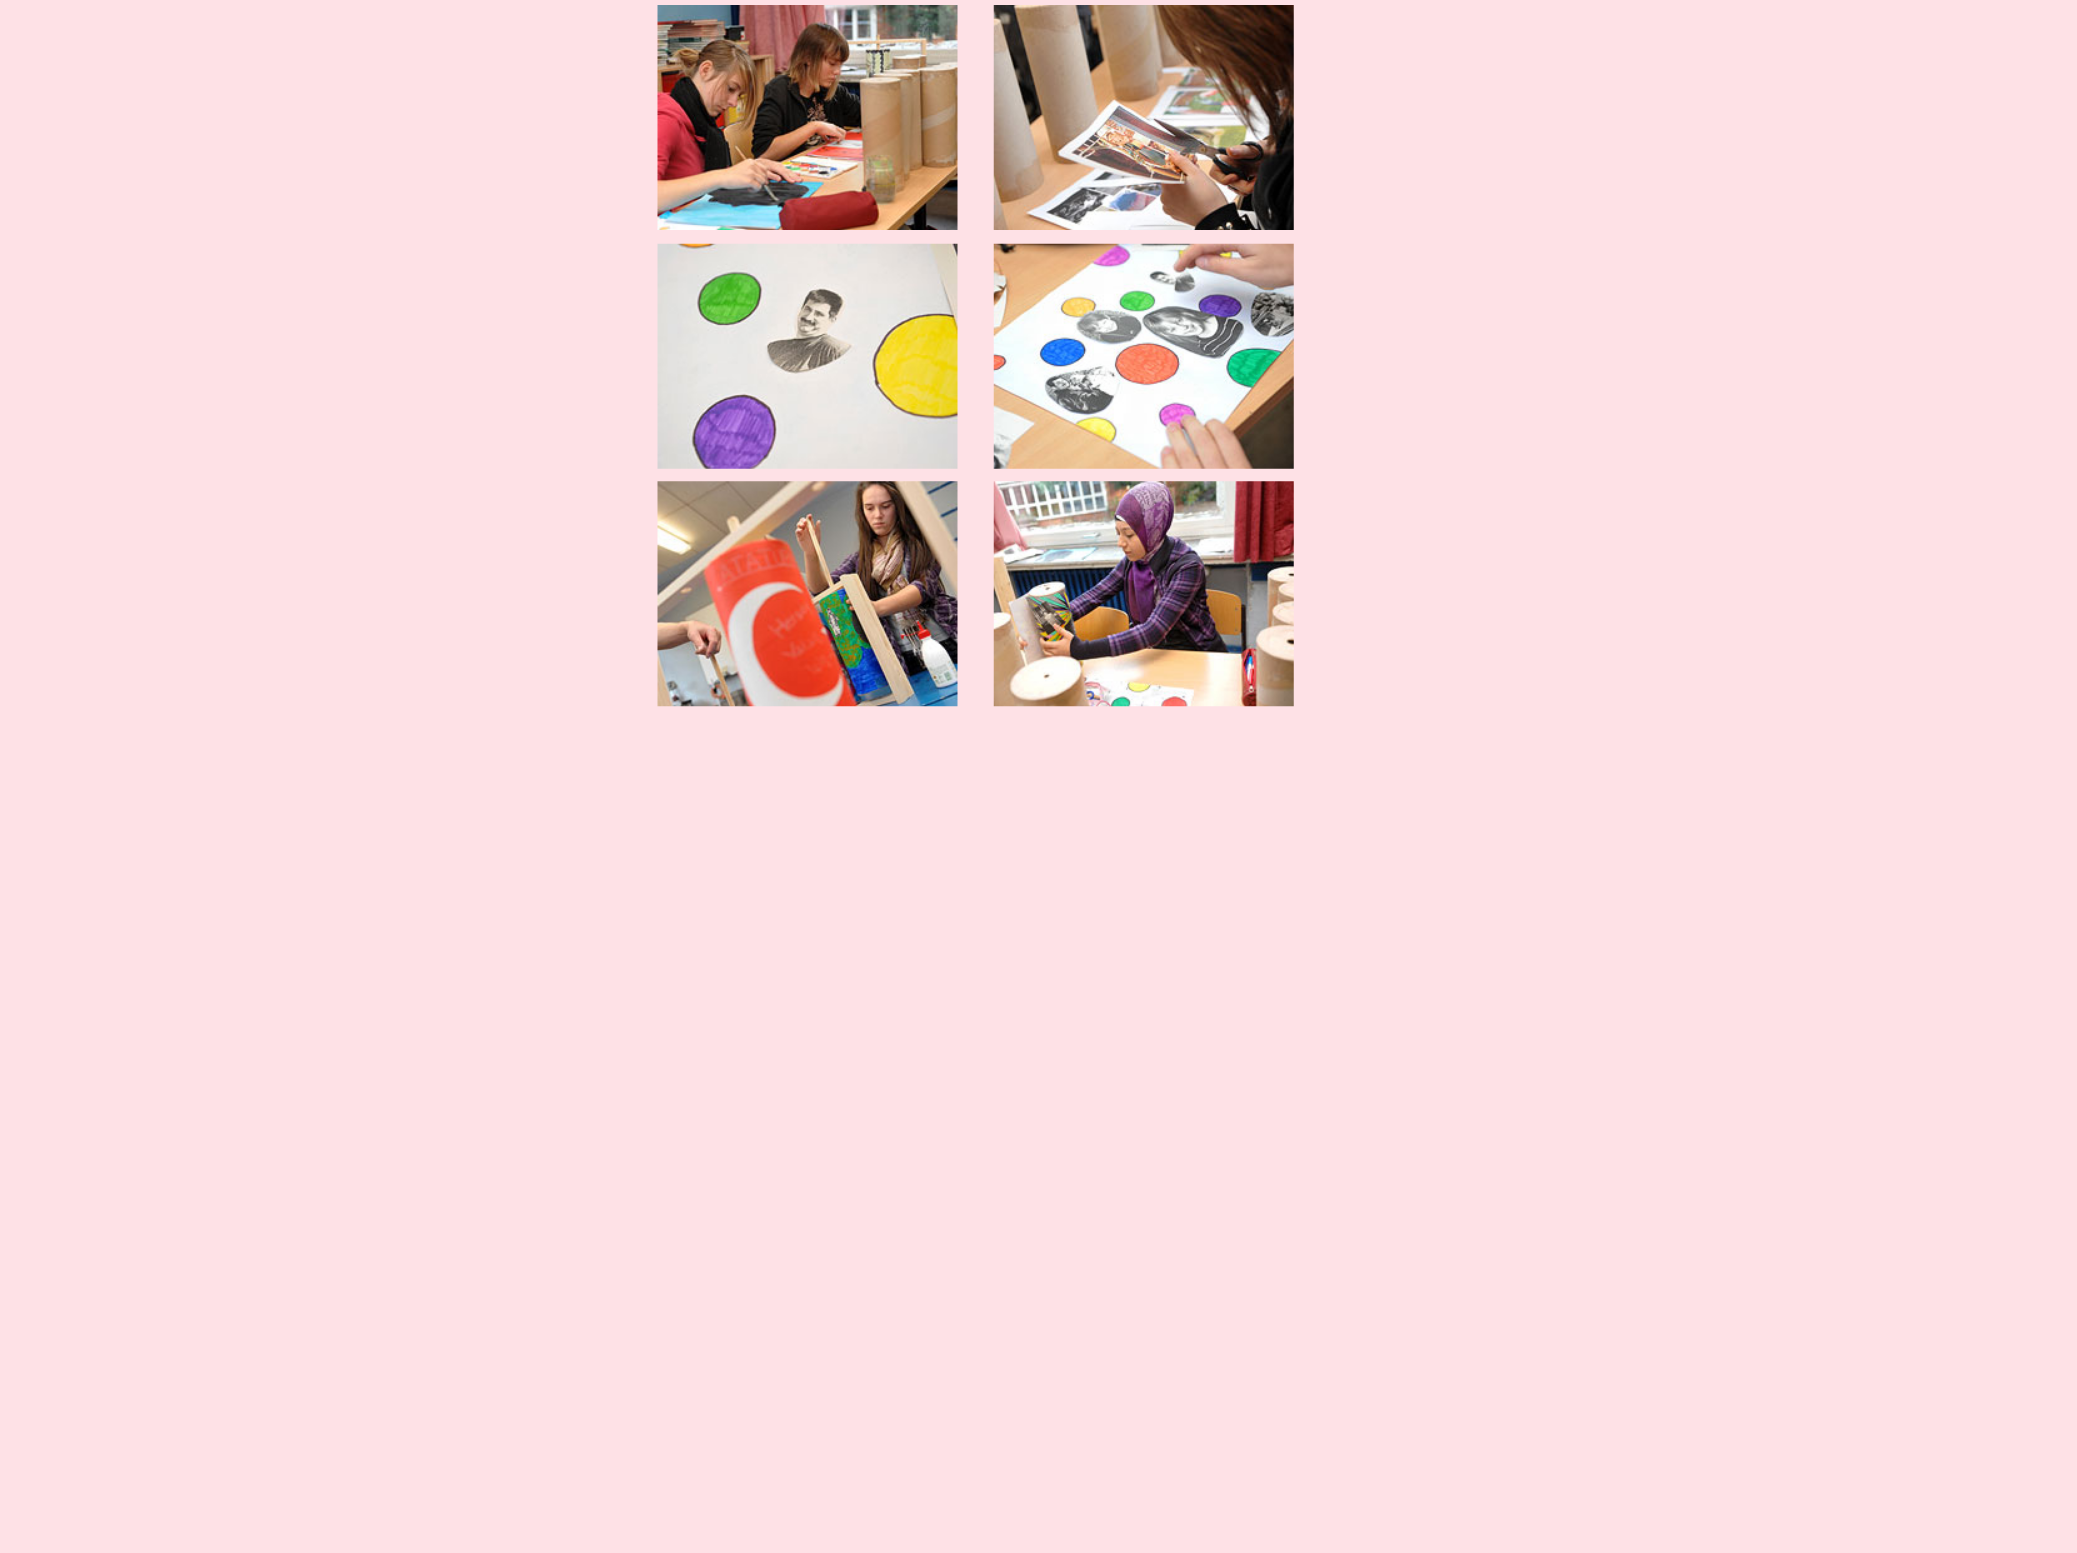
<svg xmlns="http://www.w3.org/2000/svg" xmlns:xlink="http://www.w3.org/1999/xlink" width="2077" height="1553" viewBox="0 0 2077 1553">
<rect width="100%" height="100%" fill="#fee1e6"/>
<image xlink:href="image0.png" x="657" y="5" width="301" height="225"/>
<image xlink:href="image1.png" x="993" y="5" width="301" height="225"/>
<image xlink:href="image2.png" x="657" y="243" width="301" height="226"/>
<image xlink:href="image3.png" x="993" y="243" width="301" height="226"/>
<image xlink:href="image4.png" x="657" y="481" width="301" height="226"/>
<image xlink:href="image5.png" x="993" y="481" width="301" height="226"/>
</svg>
